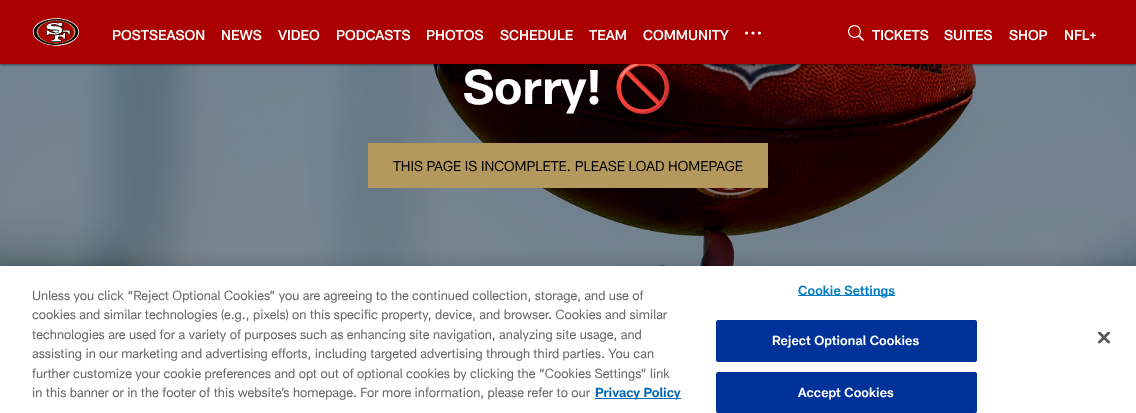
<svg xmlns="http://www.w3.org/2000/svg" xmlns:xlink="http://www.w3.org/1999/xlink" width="1136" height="413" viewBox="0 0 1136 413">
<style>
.cls-1{font:bold 48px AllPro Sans;fill:#ffffff}
.cls-2{font:bold 48px Noto Color Emoji;fill:#ffffff}
.cls-3{font:500 14px AllPro Sans;fill:#ffffff}
.cls-4{font:14px AllPro Sans;fill:#000000}
.cls-5{font:13px AllPro Sans;fill:#666666}
.cls-6{font:bold 13px AllPro Sans;fill:#0067b1}
.cls-7{font:600 13px AllPro Sans;letter-spacing:0.1px;fill:#007dc3}
.cls-8{font:600 13px AllPro Sans;letter-spacing:0.1px;fill:#ffffff}
</style>
<rect width="100%" height="100%" fill="#ffffff"/>
<image xlink:href="image2.png" x="0" y="64" width="1136" height="202"/>
<rect fill="#000000" fill-opacity="0.47" filter="blur(1px)" x="0" y="1" width="1136" height="64"/>
<rect fill="#b3995d" x="368" y="143" width="400" height="45"/>
<rect fill="#000000" fill-opacity="0.2" filter="blur(9px)" x="0" y="266" width="1136" height="147"/>
<rect fill="#ffffff" x="0" y="266" width="1136" height="147"/>
<rect fill="#0067b1" x="595" y="398" width="86" height="1"/>
<rect fill="#007dc3" x="798" y="295" width="97" height="1"/>
<rect fill="#003399" stroke="#003399" x="716.5" y="320.5" width="260" height="41" rx="1.5"/>
<rect fill="#003399" stroke="#003399" x="716.5" y="372.5" width="260" height="40" rx="1.5"/>
<image xlink:href="image3.png" x="1098" y="332" width="12" height="12"/>
<text class="cls-1" x="463" y="104">Sorry!</text>
<text class="cls-2" x="613" y="104">🚫</text>
<rect fill="#aa0000" x="0" y="0" width="1136" height="64"/>
<image xlink:href="image0.png" x="33" y="18" width="46" height="28"/>
<text class="cls-3" x="1064" y="40">NFL+</text>
<text class="cls-3" x="1009" y="40">SHOP</text>
<text class="cls-3" x="944" y="40">SUITES</text>
<text class="cls-3" x="872" y="40">TICKETS</text>
<circle fill="#ffffff" cx="746.6" cy="33" r="1.6"/>
<circle fill="#ffffff" cx="753" cy="33" r="1.6"/>
<circle fill="#ffffff" cx="759.4" cy="33" r="1.6"/>
<text class="cls-3" x="643" y="40">COMMUNITY</text>
<text class="cls-3" x="589" y="40">TEAM</text>
<text class="cls-3" x="500" y="40">SCHEDULE</text>
<text class="cls-3" x="426" y="40">PHOTOS</text>
<text class="cls-3" x="336" y="40">PODCASTS</text>
<text class="cls-3" x="278" y="40">VIDEO</text>
<text class="cls-3" x="221" y="40">NEWS</text>
<text class="cls-3" x="112" y="40">POSTSEASON</text>
<image xlink:href="image1.png" x="848" y="25" width="16" height="16"/>
<text class="cls-4" x="393" y="171">THIS PAGE IS INCOMPLETE. PLEASE LOAD HOMEPAGE</text>
<text class="cls-5"><tspan x="32" y="300">Unless you click “Reject Optional Cookies” you are agreeing to the continued collection, storage, and use of</tspan><tspan x="32" y="319">cookies and similar technologies (e.g., pixels) on this specific property, device, and browser. Cookies and similar</tspan><tspan x="32" y="339">technologies are used for a variety of purposes such as enhancing site navigation, analyzing site usage, and</tspan><tspan x="32" y="358">assisting in our marketing and advertising efforts, including targeted advertising through third parties. You can</tspan><tspan x="32" y="378">further customize your cookie preferences and opt out of optional cookies by clicking the “Cookies Settings” link</tspan><tspan x="32" y="397">in this banner or in the footer of this website’s homepage. For more information, please refer to our</tspan></text>
<text class="cls-6" x="595" y="397">Privacy Policy</text>
<text class="cls-7" x="798" y="295">Cookie Settings</text>
<text class="cls-8" x="772" y="345">Reject Optional Cookies</text>
<text class="cls-8" x="798" y="397">Accept Cookies</text>
</svg>
